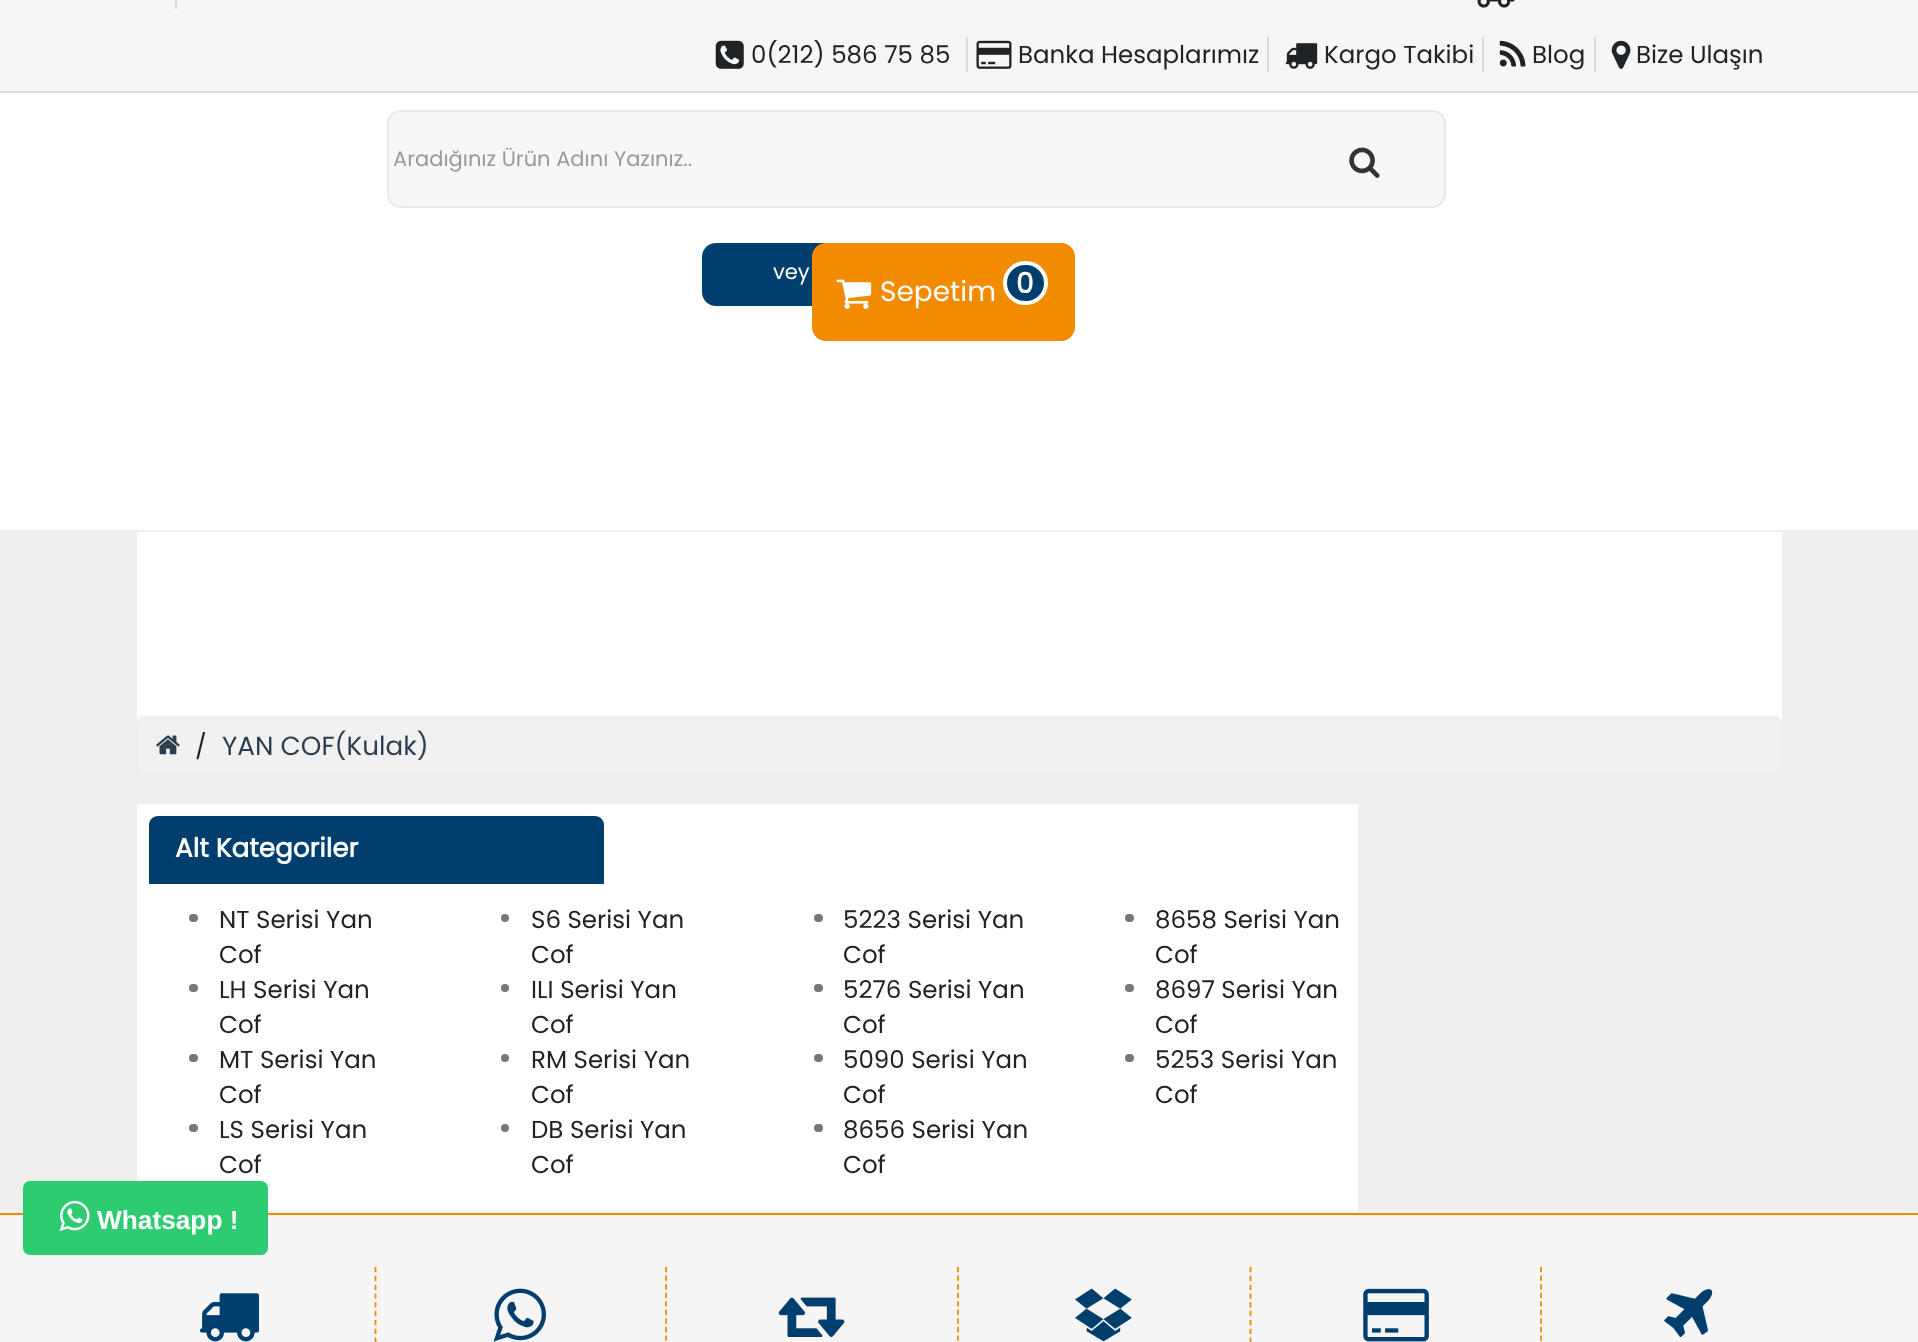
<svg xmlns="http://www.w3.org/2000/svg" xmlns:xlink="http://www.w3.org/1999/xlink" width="1918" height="1342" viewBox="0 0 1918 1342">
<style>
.cls-1{font:24.5px Poppins;fill:#202326}
.cls-2{font:21px Poppins;fill:#999999}
.cls-3{font:21px Poppins;fill:#ffffff}
.cls-4{font:28px Poppins;fill:#ffffff}
.cls-5{font:bold 28px Poppins;fill:#ffffff}
.cls-6{font:26.25px Poppins;fill:#2c3e50}
.cls-7{font:bold 26.25px Poppins;fill:#ffffff}
.cls-8{font:bold 26.25px Liberation Sans;fill:#ffffff}
</style>
<rect width="100%" height="100%" fill="#efefef"/>
<rect fill="#f6f6f6" x="0" y="0" width="1918" height="91"/>
<rect fill="#dddddd" x="0" y="91" width="1918" height="2"/>
<rect fill="#d9d9e1" x="175" y="0" width="2" height="9"/>
<image xlink:href="image0.png" x="1477" y="0" width="38" height="8"/>
<image xlink:href="image1.png" x="715" y="40" width="29" height="29"/>
<rect fill="#d9d9e1" x="1267" y="37" width="2" height="35"/>
<rect fill="#d9d9e1" x="966" y="37" width="2" height="35"/>
<image xlink:href="image2.png" x="976" y="40" width="36" height="29"/>
<rect fill="#d9d9e1" x="1482" y="37" width="2" height="35"/>
<image xlink:href="image3.png" x="1285" y="43" width="33" height="26"/>
<rect fill="#d9d9e1" x="1594" y="37" width="2" height="35"/>
<image xlink:href="image4.png" x="1499" y="40" width="27" height="27"/>
<image xlink:href="image5.png" x="1611" y="40" width="20" height="29"/>
<rect fill="#ffffff" x="0" y="93" width="1918" height="437"/>
<rect fill="#f7f7f7" stroke="#e9e9e9" stroke-width="2" x="388" y="111" width="1057" height="96" rx="13"/>
<image xlink:href="image6.png" x="1349" y="147" width="31" height="31"/>
<rect fill="#003e6d" x="702" y="243" width="262" height="63" rx="14"/>
<rect fill="#f28b00" stroke="#f28b00" stroke-width="2" x="813" y="244" width="261" height="96" rx="13"/>
<image xlink:href="image7.png" x="836" y="279" width="36" height="30"/>
<rect fill="#003e6d" stroke="#ffffff" stroke-width="4" x="1005" y="263" width="41" height="40" rx="20"/>
<rect fill="#ffffff" x="137" y="532" width="1645" height="191"/>
<rect fill="#f1f1f1" stroke="#eeeeee" stroke-width="2" x="138" y="717" width="1643" height="57" rx="6"/>
<image xlink:href="image8.png" x="156" y="735" width="24" height="20"/>
<rect fill="#ffffff" x="137" y="804" width="1221" height="407"/>
<path fill="#003e6d" d="M158 816H595C600 816 604 820 604 825V884H149V825C149 820 153 816 158 816Z"/>
<rect fill="#777777" x="189" y="914" width="9" height="8" rx="4"/>
<rect fill="#777777" x="189" y="984" width="9" height="8" rx="4"/>
<rect fill="#777777" x="189" y="1054" width="9" height="8" rx="4"/>
<rect fill="#777777" x="189" y="1124" width="9" height="8" rx="4"/>
<circle fill="#777777" cx="505" cy="918" r="4"/>
<circle fill="#777777" cx="505" cy="988" r="4"/>
<circle fill="#777777" cx="505" cy="1058" r="4"/>
<circle fill="#777777" cx="505" cy="1128" r="4"/>
<rect fill="#777777" x="814" y="914" width="9" height="8" rx="4"/>
<rect fill="#777777" x="814" y="984" width="9" height="8" rx="4"/>
<rect fill="#777777" x="814" y="1054" width="9" height="8" rx="4"/>
<rect fill="#777777" x="814" y="1124" width="9" height="8" rx="4"/>
<rect fill="#777777" x="1125" y="914" width="9" height="8" rx="4"/>
<rect fill="#777777" x="1125" y="984" width="9" height="8" rx="4"/>
<rect fill="#777777" x="1125" y="1054" width="9" height="8" rx="4"/>
<rect fill="#f5f5f5" x="0" y="1215" width="1918" height="127"/>
<rect fill="#f28b00" x="0" y="1213" width="1918" height="2"/>
<rect fill="#2ecc71" x="23" y="1181" width="245" height="74" rx="7"/>
<image xlink:href="image9.png" x="59" y="1200" width="31" height="31"/>
<path fill="none" stroke="#f28b00" stroke-width="1.8" stroke-dasharray="5.25 3.57" d="M375.5 1267V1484"/>
<image xlink:href="image10.png" x="199" y="1293" width="60" height="49"/>
<path fill="none" stroke="#f28b00" stroke-width="1.8" stroke-dasharray="5.25 3.32" d="M666 1267V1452.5"/>
<image xlink:href="image11.png" x="493" y="1288" width="53" height="54"/>
<path fill="none" stroke="#f28b00" stroke-width="1.8" stroke-dasharray="5.25 3.32" d="M958 1267V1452.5"/>
<image xlink:href="image12.png" x="778" y="1297" width="67" height="40"/>
<path fill="none" stroke="#f28b00" stroke-width="1.8" stroke-dasharray="5.25 3.57" d="M1250.5 1267V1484"/>
<image xlink:href="image13.png" x="1075" y="1288" width="57" height="54"/>
<path fill="none" stroke="#f28b00" stroke-width="1.8" stroke-dasharray="5.25 3.32" d="M1541 1267V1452.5"/>
<image xlink:href="image14.png" x="1363" y="1288" width="66" height="54"/>
<image xlink:href="image15.png" x="1664" y="1289" width="49" height="48"/>
<text class="cls-1" x="751" y="63">0(212) 586 75 85</text>
<text class="cls-1" x="1018" y="63">Banka Hesaplarımız</text>
<text class="cls-1" x="1324" y="63">Kargo Takibi</text>
<text class="cls-1" x="1532" y="63">Blog</text>
<text class="cls-1" x="1636" y="63">Bize Ulaşın</text>
<text class="cls-2" x="393" y="166">Aradığınız Ürün Adını Yazınız..</text>
<text class="cls-3" x="773" y="279">vey</text>
<text class="cls-4" x="880" y="301">Sepetim</text>
<text class="cls-5" x="1016" y="293">0</text>
<text class="cls-1" x="195" y="755">/</text>
<text class="cls-6" x="222" y="755">YAN COF(Kulak)</text>
<text class="cls-7" x="175" y="857">Alt Kategoriler</text>
<text class="cls-1"><tspan x="219" y="928">NT Serisi Yan</tspan><tspan x="219" y="963">Cof</tspan><tspan x="219" y="998">LH Serisi Yan</tspan><tspan x="219" y="1033">Cof</tspan><tspan x="219" y="1068">MT Serisi Yan</tspan><tspan x="219" y="1103">Cof</tspan><tspan x="219" y="1138">LS Serisi Yan</tspan><tspan x="219" y="1173">Cof</tspan></text>
<text class="cls-1"><tspan x="531" y="928">S6 Serisi Yan</tspan><tspan x="531" y="963">Cof</tspan><tspan x="531" y="998">ILI Serisi Yan</tspan><tspan x="531" y="1033">Cof</tspan><tspan x="531" y="1068">RM Serisi Yan</tspan><tspan x="531" y="1103">Cof</tspan><tspan x="531" y="1138">DB Serisi Yan</tspan><tspan x="531" y="1173">Cof</tspan></text>
<text class="cls-1"><tspan x="843" y="928">5223 Serisi Yan</tspan><tspan x="843" y="963">Cof</tspan><tspan x="843" y="998">5276 Serisi Yan</tspan><tspan x="843" y="1033">Cof</tspan><tspan x="843" y="1068">5090 Serisi Yan</tspan><tspan x="843" y="1103">Cof</tspan><tspan x="843" y="1138">8656 Serisi Yan</tspan><tspan x="843" y="1173">Cof</tspan></text>
<text class="cls-1"><tspan x="1155" y="928">8658 Serisi Yan</tspan><tspan x="1155" y="963">Cof</tspan><tspan x="1155" y="998">8697 Serisi Yan</tspan><tspan x="1155" y="1033">Cof</tspan><tspan x="1155" y="1068">5253 Serisi Yan</tspan><tspan x="1155" y="1103">Cof</tspan></text>
<text class="cls-8" x="97" y="1229">Whatsapp !</text>
</svg>
